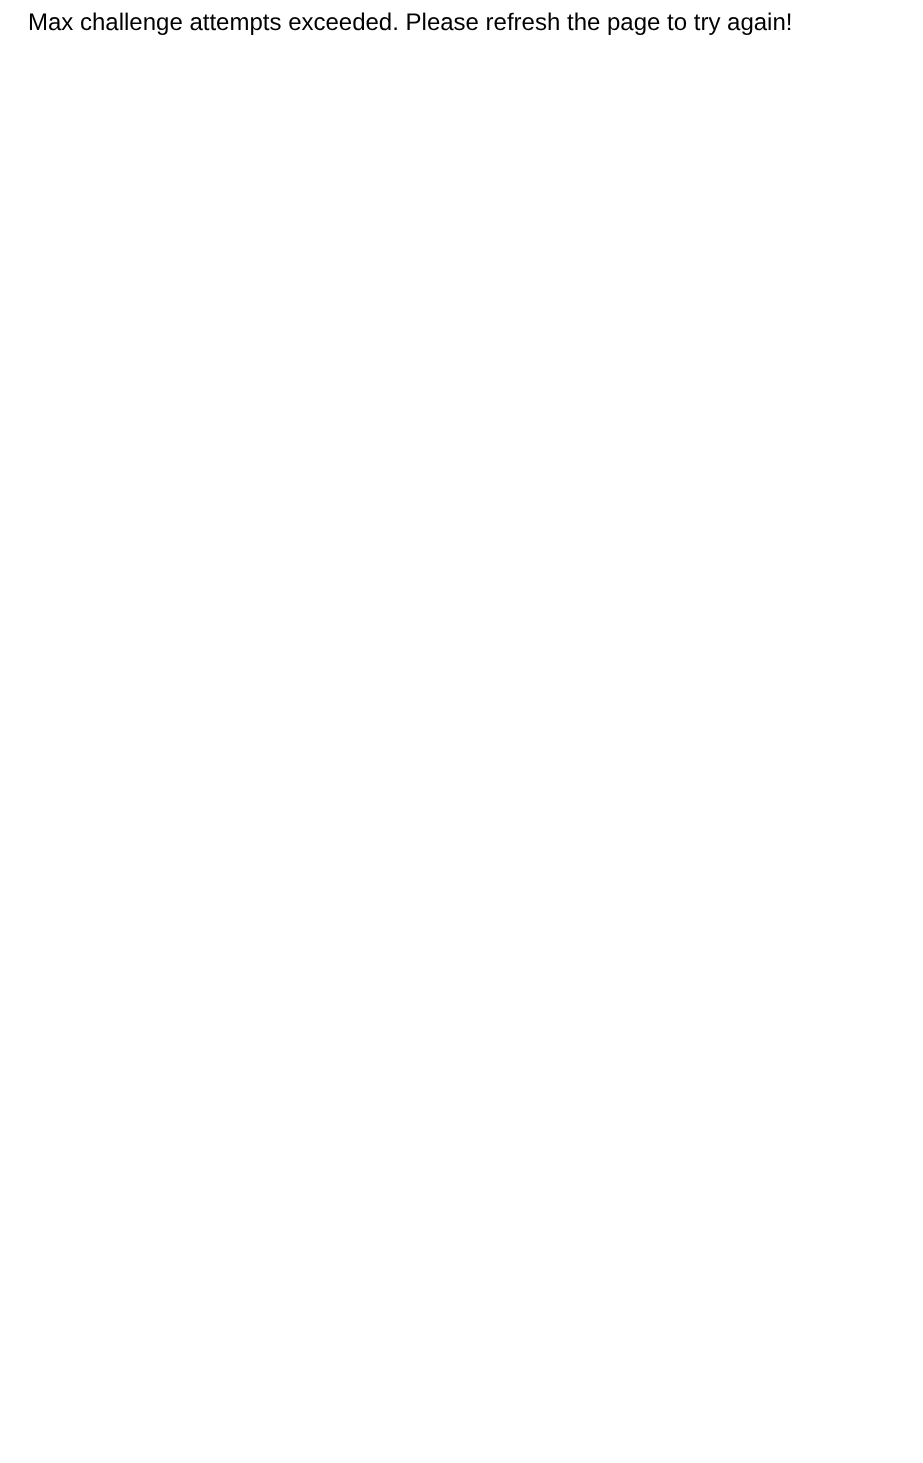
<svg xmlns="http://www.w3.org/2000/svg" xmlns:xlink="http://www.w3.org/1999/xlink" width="923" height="1463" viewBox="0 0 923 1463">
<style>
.cls-1{font:24px Liberation Sans;fill:#000000}
</style>
<rect width="100%" height="100%" fill="#ffffff"/>
<text class="cls-1" x="28" y="30">Max challenge attempts exceeded. Please refresh the page to try again!</text>
</svg>
